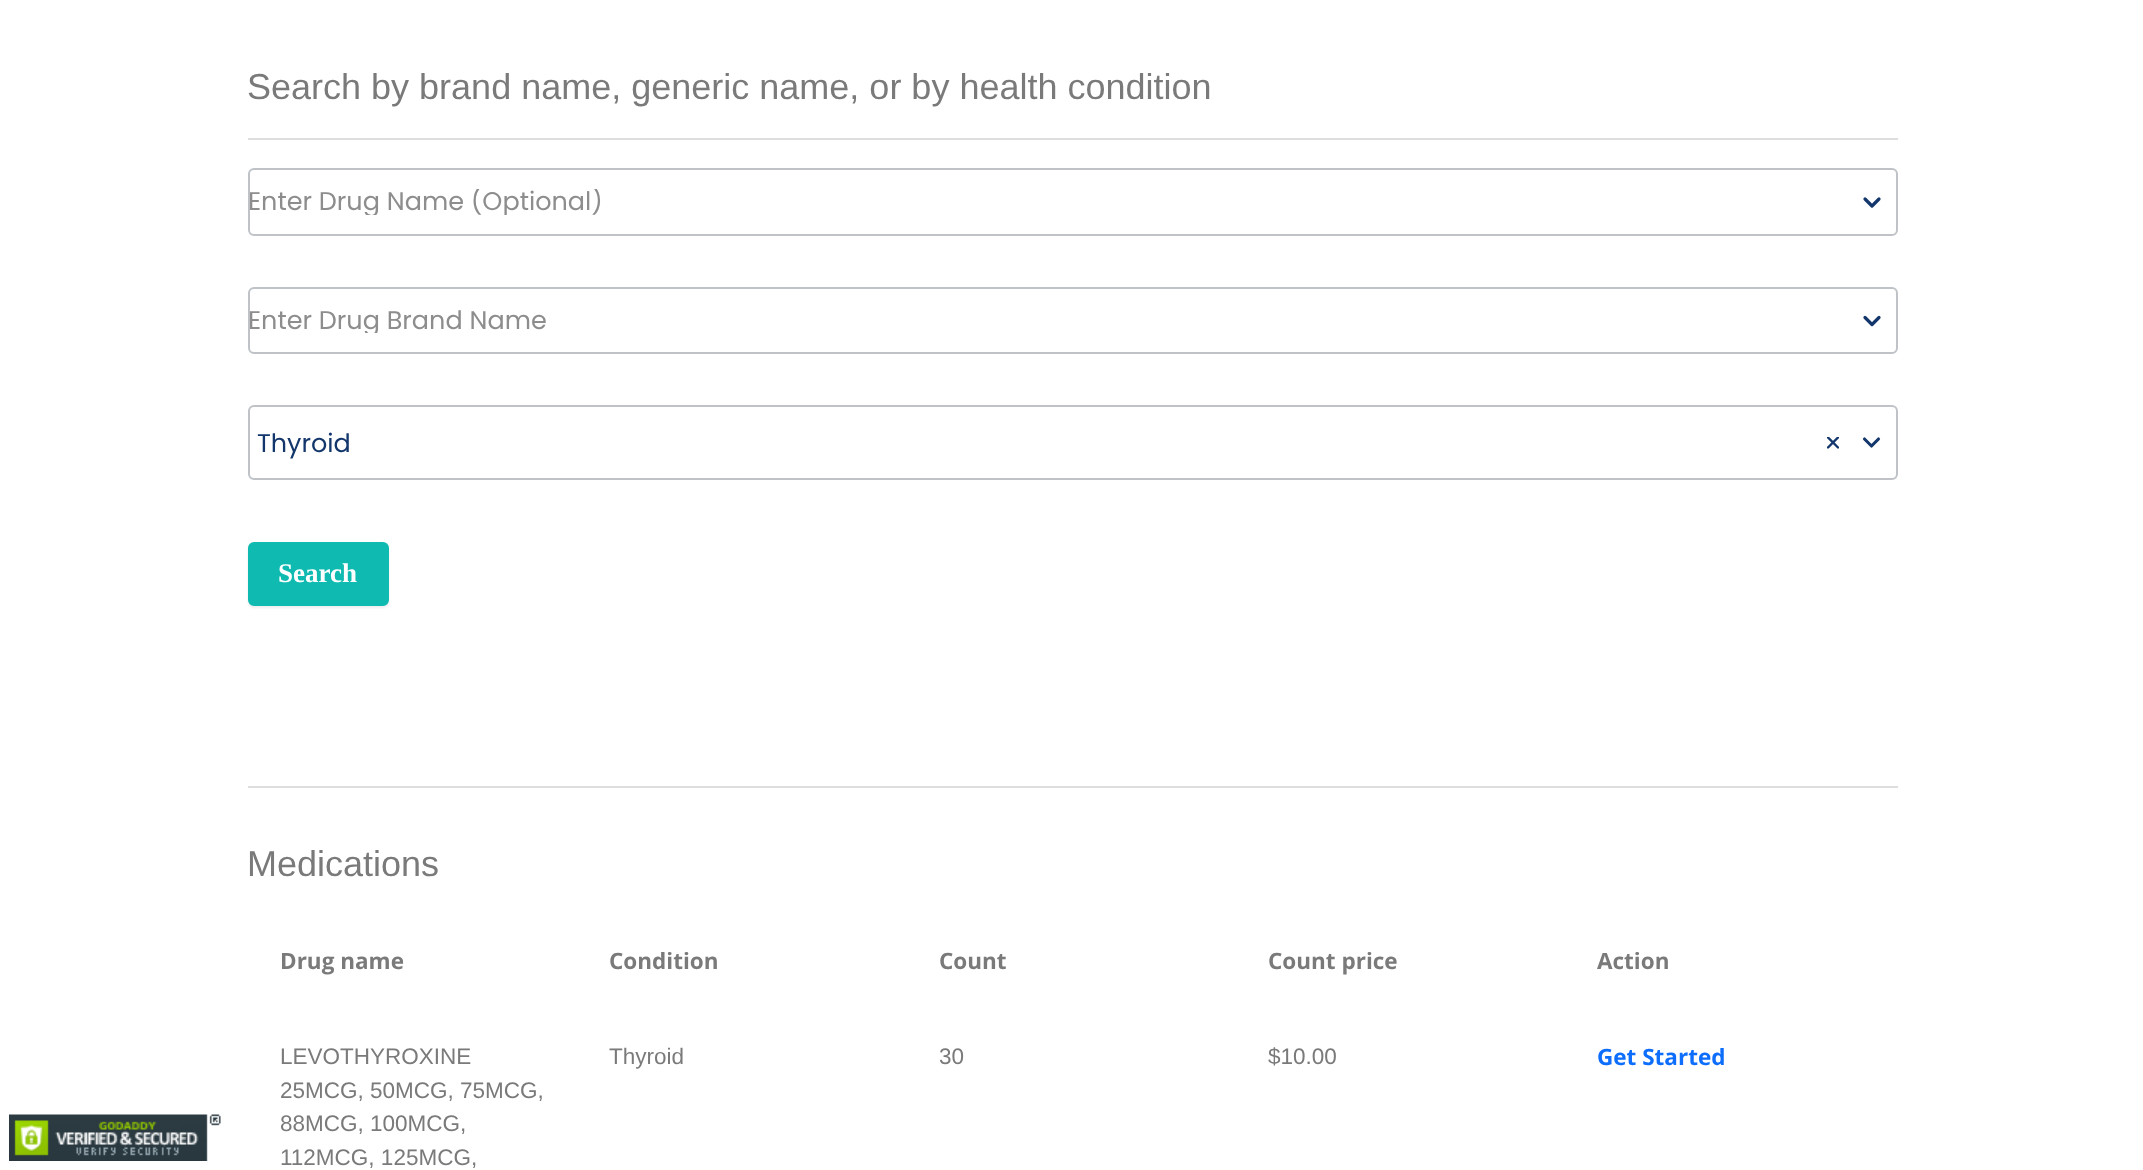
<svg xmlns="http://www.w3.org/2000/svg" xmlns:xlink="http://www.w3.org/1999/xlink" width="2143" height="1170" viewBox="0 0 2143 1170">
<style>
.cls-1{font:36px Liberation Sans;fill:#7a7a7a}
.cls-2{font:25.5px Poppins;fill:#8d8d8d}
.cls-3{font:25.5px Poppins;fill:#13376c}
.cls-4{font:bold 27px Liberation Serif;fill:#ffffff}
.cls-5{font:bold 22.5px Open Sans;fill:#7a7a7a}
.cls-6{font:22.5px Liberation Sans;fill:#7a7a7a}
.cls-7{font:bold 22.5px Open Sans;fill:#0d6efd}
</style>
<defs>
<clipPath id="clip1"><rect x="1827" y="437" width="12" height="12"/></clipPath>
<clipPath id="clip2"><rect x="249" y="189" width="1605" height="26"/></clipPath>
<clipPath id="clip3"><rect x="249" y="308" width="1605" height="25"/></clipPath>
</defs>
<rect width="100%" height="100%" fill="#ffffff"/>
<image xlink:href="image0.png" x="9" y="1114" width="212" height="47"/>
<rect fill="#dedede" x="248" y="138" width="1650" height="2"/>
<rect fill="none" stroke="#bfc3c8" stroke-width="2" x="249" y="169" width="1648" height="66" rx="5"/>
<path fill="none" stroke="#13376c" stroke-width="3.2" stroke-linecap="round" stroke-linejoin="round" d="M1865 199L1872 206L1879 199"/>
<rect fill="none" stroke="#bfc3c8" stroke-width="2" x="249" y="288" width="1648" height="65" rx="5"/>
<path fill="none" stroke="#13376c" stroke-width="3.2" stroke-linecap="round" stroke-linejoin="round" d="M1865 317.5L1872 324.5L1879 317.5"/>
<rect fill="none" stroke="#bfc3c8" stroke-width="2" x="249" y="406" width="1648" height="73" rx="5"/>
<g clip-path="url(#clip1)">
<path fill="none" stroke="#13376c" stroke-width="2.4" stroke-linecap="round" stroke-linejoin="round" d="M1828 437.5L1838 447.5M1828 447.5L1838 437.5"/>
</g>
<path fill="none" stroke="#13376c" stroke-width="3.1" stroke-linecap="round" stroke-linejoin="round" d="M1864.5 439L1871.5 446L1878.5 439"/>
<rect fill="#eeeeee" filter="blur(1px)" x="248" y="543" width="141" height="65" rx="6"/>
<rect fill="#0fbab1" stroke="#0fbab1" stroke-width="2" x="249" y="543" width="139" height="62" rx="5"/>
<rect fill="#dedede" x="248" y="786" width="1650" height="2"/>
<text class="cls-1" x="247" y="99">Search by brand name, generic name, or by health condition</text>
<g clip-path="url(#clip2)">
<text class="cls-2" x="248" y="210">Enter Drug Name (Optional)</text>
</g>
<g clip-path="url(#clip3)">
<text class="cls-2" x="248" y="329">Enter Drug Brand Name</text>
</g>
<text class="cls-3" x="257" y="452">Thyroid</text>
<text class="cls-4" x="278" y="582">Search</text>
<text class="cls-1" x="247" y="876">Medications</text>
<text class="cls-5" x="280" y="969">Drug name</text>
<text class="cls-5" x="609" y="969">Condition</text>
<text class="cls-5" x="939" y="969">Count</text>
<text class="cls-5" x="1268" y="969">Count price</text>
<text class="cls-5" x="1597" y="969">Action</text>
<text class="cls-6"><tspan x="280" y="1064">LEVOTHYROXINE</tspan><tspan x="280" y="1098">25MCG, 50MCG, 75MCG,</tspan><tspan x="280" y="1131">88MCG, 100MCG,</tspan><tspan x="280" y="1165">112MCG, 125MCG,</tspan></text>
<text class="cls-6" x="609" y="1064">Thyroid</text>
<text class="cls-6" x="939" y="1064">30</text>
<text class="cls-6" x="1268" y="1064">$10.00</text>
<text class="cls-7" x="1597" y="1065">Get Started</text>
</svg>
